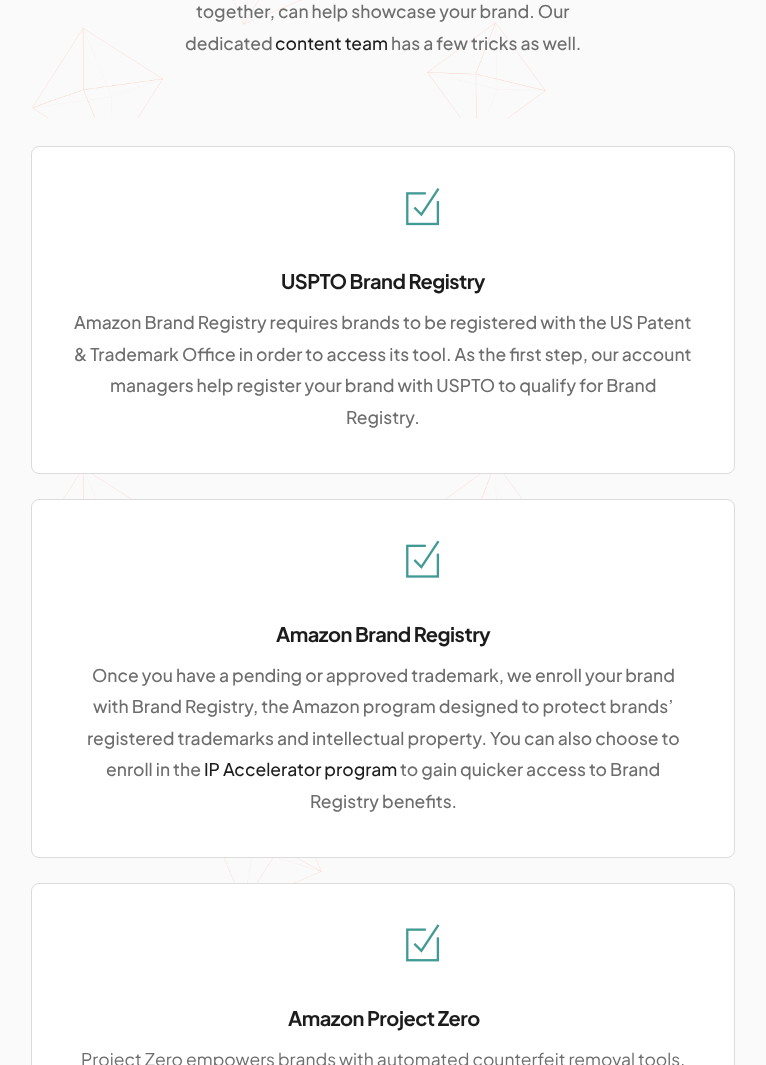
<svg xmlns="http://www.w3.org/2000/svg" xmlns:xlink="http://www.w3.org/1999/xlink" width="766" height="1065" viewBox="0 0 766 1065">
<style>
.cls-1{font:500 17.5px Plus Jakarta Sans;fill:#6d6d6d}
.cls-2{font:500 17.5px Plus Jakarta Sans;fill:#1c1c1c}
.cls-3{font:bold 20px Plus Jakarta Sans;letter-spacing:-0.5px;fill:#1c1c1c}
.cls-4{font:17.5px Plus Jakarta Sans;fill:#6d6d6d}
</style>
<rect width="100%" height="100%" fill="#fafafa"/>
<image xlink:href="image0.png" x="32" y="0" width="514" height="883"/>
<rect fill="#ffffff" stroke="#dcdcdc" x="31.5" y="146.5" width="703" height="327" rx="7.5"/>
<image xlink:href="image1.png" x="406" y="188" width="34" height="38"/>
<rect fill="#ffffff" stroke="#dcdcdc" x="31.5" y="499.5" width="703" height="358" rx="7.5"/>
<image xlink:href="image2.png" x="406" y="540" width="34" height="38"/>
<rect fill="#ffffff" stroke="#dcdcdc" x="31.5" y="883.5" width="703" height="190" rx="7.5"/>
<image xlink:href="image3.png" x="406" y="924" width="34" height="38"/>
<text class="cls-1" x="196" y="18">together, can help showcase your brand. Our</text>
<text class="cls-1" x="185" y="50">dedicated</text>
<text class="cls-2" x="275" y="50">content team</text>
<text class="cls-1" x="391" y="50">has a few tricks as well.</text>
<text class="cls-3" x="281" y="289">USPTO Brand Registry</text>
<text class="cls-1"><tspan x="74" y="329">Amazon Brand Registry requires brands to be registered with the US Patent</tspan><tspan x="74" y="361">&amp; Trademark Office in order to access its tool. As the first step, our account</tspan></text>
<text class="cls-1" x="110" y="392">managers help register your brand with USPTO to qualify for Brand</text>
<text class="cls-1" x="346" y="424">Registry.</text>
<text class="cls-3" x="276" y="642">Amazon Brand Registry</text>
<text class="cls-1" x="92" y="682">Once you have a pending or approved trademark, we enroll your brand</text>
<text class="cls-1" x="93" y="713">with Brand Registry, the Amazon program designed to protect brands’</text>
<text class="cls-1" x="87" y="745">registered trademarks and intellectual property. You can also choose to</text>
<text class="cls-1" x="106" y="776">enroll in the</text>
<text class="cls-2" x="204" y="776">IP Accelerator program</text>
<text class="cls-1" x="400" y="776">to gain quicker access to Brand</text>
<text class="cls-1" x="310" y="808">Registry benefits.</text>
<text class="cls-3" x="288" y="1026">Amazon Project Zero</text>
<text class="cls-4" x="81" y="1066">Project Zero empowers brands with automated counterfeit removal tools,</text>
</svg>
